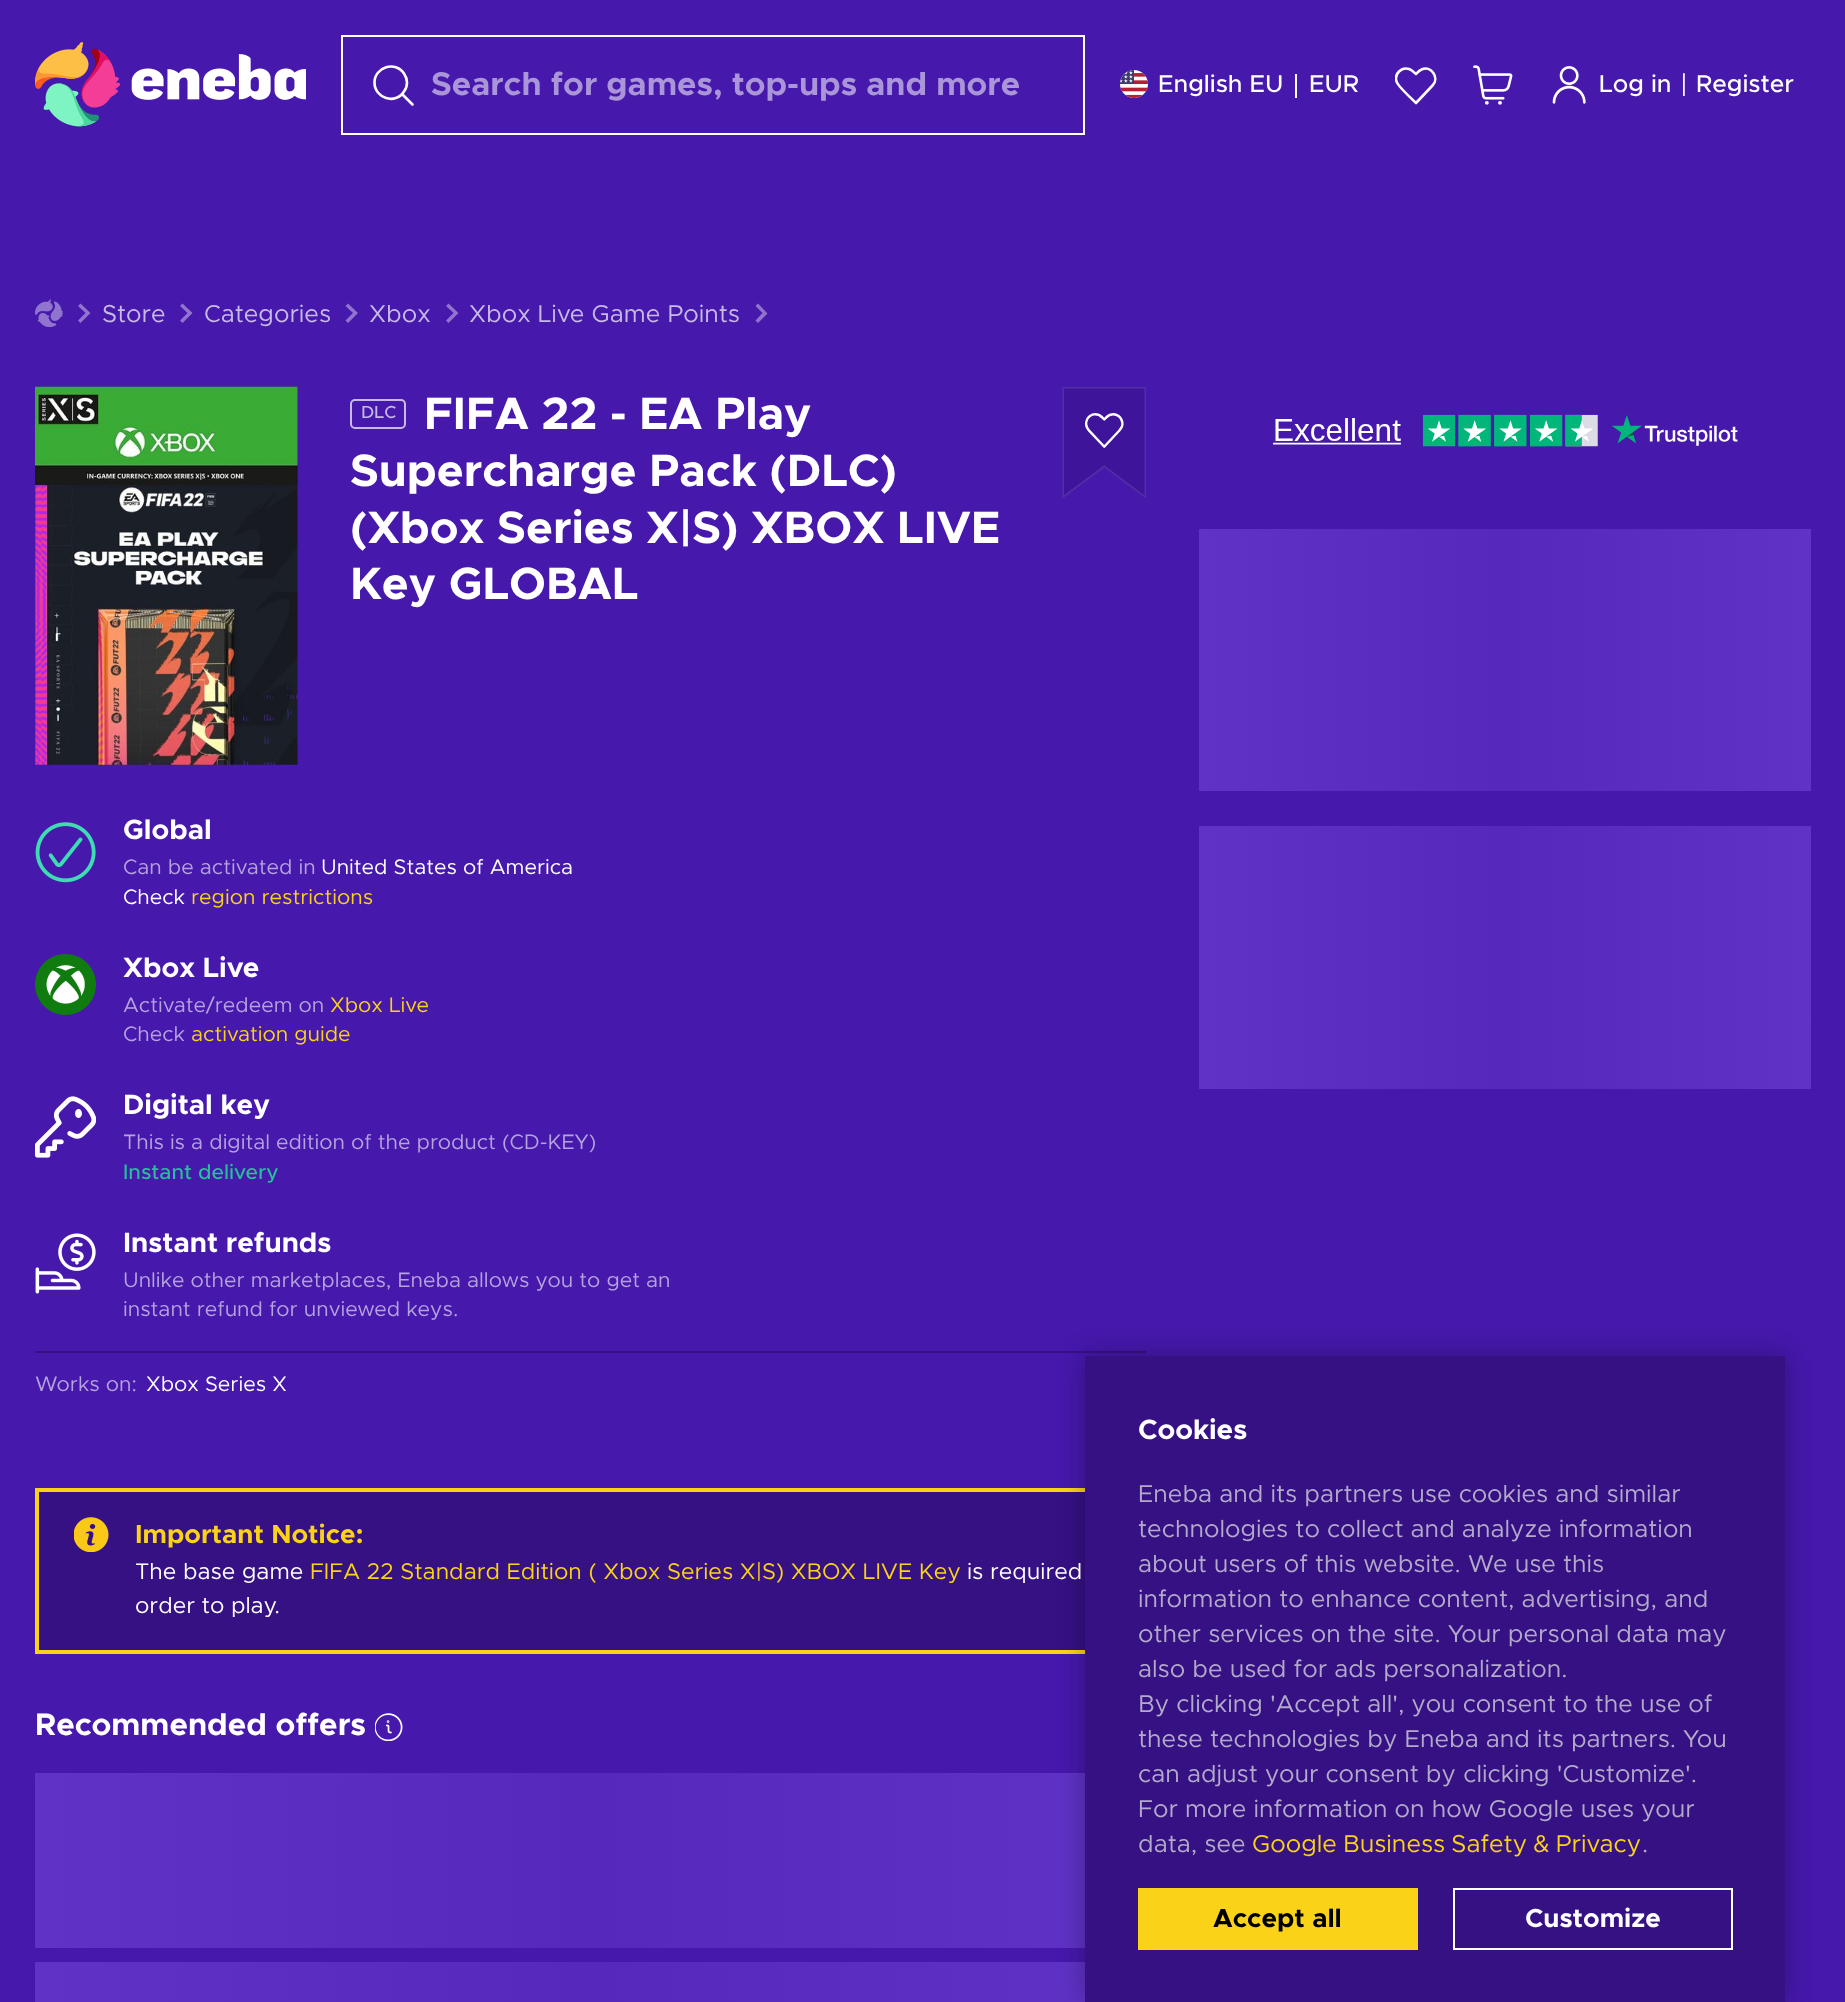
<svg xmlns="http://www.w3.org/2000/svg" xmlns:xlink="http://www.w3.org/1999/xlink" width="1845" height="2002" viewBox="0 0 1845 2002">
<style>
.cls-1{font:bold 32.75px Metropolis;fill:#aa95d9}
.cls-2{font:500 24.5px Metropolis;fill:#ffffff}
.cls-3{font:28px Metropolis;fill:#ffffff}
.cls-4{font:24.5px Metropolis;fill:#c8bae6}
.cls-5{font:500 17.5px Metropolis;fill:#c8bae6}
.cls-6{font:bold 45.5px Metropolis;fill:#ffffff}
.cls-7{font:bold 28px Metropolis;fill:#ffffff}
.cls-8{font:21px Metropolis;fill:#b5a3de}
.cls-9{font:21px Metropolis;fill:#ffffff}
.cls-10{font:21px Metropolis;fill:#fad318}
.cls-11{font:500 21px Metropolis;fill:#23c299}
.cls-12{font:bold 26.25px Metropolis;fill:#fad318}
.cls-13{font:22.75px Metropolis;fill:#ffffff}
.cls-14{font:22.75px Metropolis;fill:#fad318}
.cls-15{font:bold 31.25px Metropolis;fill:#ffffff}
.cls-16{font:24.5px Metropolis;fill:#b3aac9}
.cls-17{font:24.5px Metropolis;fill:#fad318}
.cls-18{font:bold 26.25px Metropolis;fill:#000000}
.cls-19{font:bold 26.25px Metropolis;fill:#ffffff}
</style>
<defs>
<clipPath id="clip1"><rect x="1395" y="65" width="42" height="42"/></clipPath>
<linearGradient id="g1" gradientUnits="userSpaceOnUse" x1="1199" y1="660" x2="1811" y2="660"><stop offset="0" stop-color="#6033c6"/><stop offset="0.5" stop-color="#5628bc"/><stop offset="1" stop-color="#6033c6"/></linearGradient>
<linearGradient id="g2" gradientUnits="userSpaceOnUse" x1="1199" y1="957" x2="1811" y2="957"><stop offset="0" stop-color="#6033c6"/><stop offset="0.5" stop-color="#5628bc"/><stop offset="1" stop-color="#6033c6"/></linearGradient>
<linearGradient id="g3" gradientUnits="userSpaceOnUse" x1="35" y1="1860" x2="1146" y2="1860"><stop offset="0" stop-color="#6033c6"/><stop offset="0.5" stop-color="#5628bc"/><stop offset="1" stop-color="#6033c6"/></linearGradient>
<linearGradient id="g4" gradientUnits="userSpaceOnUse" x1="35" y1="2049" x2="1146" y2="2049"><stop offset="0" stop-color="#6033c6"/><stop offset="0.5" stop-color="#5628bc"/><stop offset="1" stop-color="#6033c6"/></linearGradient>
</defs>
<rect width="100%" height="100%" fill="#4618ac"/>
<image xlink:href="image0.png" x="35" y="42" width="271" height="85"/>
<path fill="none" stroke="#ffffff" stroke-width="2.6" stroke-linecap="round" stroke-linejoin="round" d="M402.5 94.5L412.5 104.5M374.5 82.5C374.5 98.5 395.5 105 404 91.5C406 89 407 86 407 82.5C407 79.5 406 76.5 404 73.5C395.5 60.5 374.5 67 374.5 82.5Z"/>
<rect fill="none" stroke="#ffffff" stroke-width="2" x="342" y="36" width="742" height="98"/>
<image xlink:href="image1.png" x="1120" y="70" width="28" height="28"/>
<rect fill="#ffffff" x="1295" y="74" width="2" height="24"/>
<g clip-path="url(#clip1)">
<path fill="none" stroke="#ffffff" stroke-width="2.6" stroke-linecap="round" stroke-linejoin="round" d="M1416 103C1411.5 98.5 1398 86.5 1396.5 81.5C1394 74 1401.5 66.5 1409 69C1412 70 1413.5 72 1416 74C1417.5 72.5 1419 70.5 1421.5 69.5C1431 65 1440 78 1432.5 85.5Z"/>
</g>
<image xlink:href="image2.png" x="1473" y="65" width="40" height="40"/>
<image xlink:href="image3.png" x="1552" y="66" width="34" height="38"/>
<image xlink:href="image4.png" x="35" y="299" width="28" height="28"/>
<path fill="#9074cd" d="M80.5 303.5L90.5 313H85.5L78 306ZM90.5 313L80.5 323L78 320.5L85.5 313Z"/>
<path fill="#9074cd" d="M182.5 303.5L192.5 313H187.5L180 306ZM192.5 313L182.5 323L180 320.5L187.5 313Z"/>
<path fill="#9074cd" d="M348 303.5L358 313H353L345.5 306ZM358 313L348 323L345.5 320.5L353 313Z"/>
<path fill="#9074cd" d="M448.5 303.5L458.5 313H453.5L446 306ZM458.5 313L448.5 323L446 320.5L453.5 313Z"/>
<path fill="#9074cd" d="M758 303.5L767.5 313.5L762.5 313L755.5 306Z"/>
<path fill="#ffffff" fill-opacity="0.4" d="M767.5 313.5L758 323L755.5 320.5L762.5 313Z"/>
<image xlink:href="image5.png" x="35" y="386" width="263" height="379"/>
<rect fill="none" stroke="#c8bae6" stroke-width="2" x="351" y="400" width="54" height="28" rx="4"/>
<image xlink:href="image6.png" x="1062" y="387" width="84" height="112"/>
<image xlink:href="image7.png" x="1273" y="414" width="465" height="33"/>
<image xlink:href="image8.png" x="35" y="822" width="61" height="61"/>
<image xlink:href="image9.png" x="35" y="954" width="61" height="61"/>
<image xlink:href="image10.png" x="35" y="1096" width="61" height="62"/>
<image xlink:href="image11.png" x="35" y="1233" width="61" height="61"/>
<rect fill="#351183" x="35" y="1351" width="1111" height="2"/>
<rect fill="url(#g1)" x="1199" y="529" width="612" height="262"/>
<rect fill="url(#g2)" x="1199" y="826" width="612" height="263"/>
<rect fill="#351183" x="39" y="1492" width="1046" height="158"/>
<rect fill="none" stroke="#fad318" stroke-width="4" x="37" y="1490" width="1107" height="162"/>
<image xlink:href="image12.png" x="74" y="1517" width="35" height="35"/>
<image xlink:href="image13.png" x="375" y="1713" width="28" height="28"/>
<rect fill="url(#g3)" x="35" y="1773" width="1050" height="175"/>
<rect fill="url(#g4)" x="35" y="1962" width="1050" height="40"/>
<rect fill="#000000" fill-opacity="0.3" filter="blur(13px)" x="1085" y="1356" width="700" height="646"/>
<rect fill="#351183" x="1085" y="1356" width="700" height="646"/>
<rect fill="#fad318" x="1138" y="1888" width="280" height="62"/>
<rect fill="none" stroke="#ffffff" stroke-width="2" x="1454" y="1889" width="278" height="60"/>
<text class="cls-1" x="431" y="95">Search for games, top-ups and more</text>
<text class="cls-2" x="1158" y="92">English EU</text>
<text class="cls-2" x="1309" y="92">EUR</text>
<text class="cls-2" x="1599" y="92">Log in</text>
<text class="cls-3" x="1680" y="94">|</text>
<text class="cls-2" x="1696" y="92">Register</text>
<text class="cls-4" x="102" y="322">Store</text>
<text class="cls-4" x="204" y="322">Categories</text>
<text class="cls-4" x="369" y="322">Xbox</text>
<text class="cls-4" x="469" y="322">Xbox Live Game Points</text>
<text class="cls-5" x="361" y="418">DLC</text>
<text class="cls-6" x="424" y="429">FIFA 22 - EA Play</text>
<text class="cls-6"><tspan x="350" y="486">Supercharge Pack (DLC)</tspan><tspan x="350" y="543">(Xbox Series X|S) XBOX LIVE</tspan><tspan x="350" y="599">Key GLOBAL</tspan></text>
<text class="cls-7" x="123" y="839">Global</text>
<text class="cls-8" x="123" y="874">Can be activated in</text>
<text class="cls-9" x="321" y="874">United States of America</text>
<text class="cls-9" x="123" y="904">Check</text>
<text class="cls-10" x="191" y="904">region restrictions</text>
<text class="cls-7" x="123" y="977">Xbox Live</text>
<text class="cls-8" x="123" y="1012">Activate/redeem on</text>
<text class="cls-10" x="330" y="1012">Xbox Live</text>
<text class="cls-8" x="123" y="1041">Check</text>
<text class="cls-10" x="191" y="1041">activation guide</text>
<text class="cls-7" x="123" y="1114">Digital key</text>
<text class="cls-8" x="123" y="1149">This is a digital edition of the product (CD-KEY)</text>
<text class="cls-11" x="123" y="1179">Instant delivery</text>
<text class="cls-7" x="123" y="1252">Instant refunds</text>
<text class="cls-8"><tspan x="123" y="1287">Unlike other marketplaces, Eneba allows you to get an</tspan><tspan x="123" y="1316">instant refund for unviewed keys.</tspan></text>
<text class="cls-8" x="35" y="1391">Works on:</text>
<text class="cls-9" x="146" y="1391">Xbox Series X</text>
<text class="cls-12" x="135" y="1543">Important Notice:</text>
<text class="cls-13" x="135" y="1579">The base game</text>
<text class="cls-14" x="310" y="1579">FIFA 22 Standard Edition ( Xbox Series X|S) XBOX LIVE Key</text>
<text class="cls-13" x="967" y="1579">is required</text>
<text class="cls-13" x="135" y="1613">order to play.</text>
<text class="cls-15" x="35" y="1735">Recommended offers</text>
<text class="cls-7" x="1138" y="1439">Cookies</text>
<text class="cls-16"><tspan x="1138" y="1502">Eneba and its partners use cookies and similar</tspan><tspan x="1138" y="1537">technologies to collect and analyze information</tspan><tspan x="1138" y="1572">about users of this website. We use this</tspan><tspan x="1138" y="1607">information to enhance content, advertising, and</tspan><tspan x="1138" y="1642">other services on the site. Your personal data may</tspan><tspan x="1138" y="1677">also be used for ads personalization.</tspan><tspan x="1138" y="1712">By clicking 'Accept all', you consent to the use of</tspan><tspan x="1138" y="1747">these technologies by Eneba and its partners. You</tspan><tspan x="1138" y="1782">can adjust your consent by clicking 'Customize'.</tspan><tspan x="1138" y="1817">For more information on how Google uses your</tspan><tspan x="1138" y="1852">data, see</tspan></text>
<text class="cls-17" x="1252" y="1852" word-spacing="-1">Google Business Safety &amp; Privacy</text>
<text class="cls-16" x="1642" y="1852">.</text>
<text class="cls-18" x="1213" y="1927">Accept all</text>
<text class="cls-19" x="1525" y="1927">Customize</text>
</svg>
